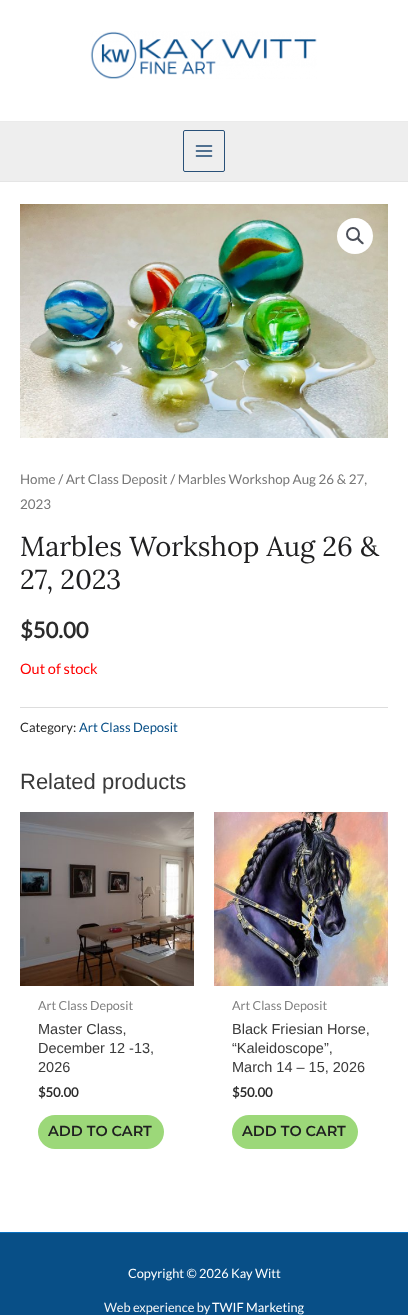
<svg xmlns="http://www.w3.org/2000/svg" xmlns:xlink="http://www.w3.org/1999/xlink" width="408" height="1315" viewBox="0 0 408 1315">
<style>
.cls-1{font:13.4px Lato;fill:#777777}
.cls-2{font:27.4px Lora;fill:#1f1f20}
.cls-3{font:bold 22px Lato;fill:#2b2b2b}
.cls-4{font:14.5px Lato;fill:#ff0000}
.cls-5{font:13px Lato;fill:#2b2b2b}
.cls-6{font:13px Lato;fill:#084f87}
.cls-7{font:22px Liberation Sans;fill:#3a3a3a}
.cls-8{font:12.5px Lato;fill:#808080}
.cls-9{font:14.5px Liberation Sans;fill:#3a3a3a}
.cls-10{font:bold 13px Lato;fill:#2b2b2b}
.cls-11{font:100 14.5px Montserrat;fill:#1f1f20}
.cls-12{font:12.75px Lato;fill:#ffffff}
.cls-13{font:12.75px Lato;fill:#f5f5f5}
</style>
<rect width="100%" height="100%" fill="#ffffff"/>
<rect fill="#ebebeb" x="0" y="121" width="408" height="1"/>
<image xlink:href="image0.png" x="90" y="31" width="227" height="48"/>
<rect fill="#eeeeee" x="0" y="122" width="408" height="59"/>
<rect fill="#e5e5e5" x="0" y="181" width="408" height="1"/>
<rect fill="none" stroke="#285078" x="183.5" y="130.5" width="41" height="41" rx="1.5"/>
<image xlink:href="image1.png" x="195" y="145" width="18" height="12"/>
<image xlink:href="image2.png" x="20" y="204" width="368" height="234"/>
<circle fill="#ffffff" cx="355" cy="236" r="18"/>
<circle fill="none" stroke="#4b4f58" stroke-width="2" cx="353" cy="234" r="6"/>
<path fill="#4b4f58" d="M357.5 238C359 237 360.5 240 361 240.5C361.5 241 364.5 242.5 363.5 244C362 245 360.5 242.5 359.5 242C359 241 356.5 239.5 357.5 238Z"/>
<rect fill="#dddddd" x="20" y="707" width="368" height="1"/>
<image xlink:href="image3.png" x="20" y="812" width="174" height="174"/>
<rect fill="#9cd879" x="38" y="1115" width="126" height="34" rx="17"/>
<image xlink:href="image4.png" x="214" y="812" width="174" height="174"/>
<rect fill="#9cd879" x="232" y="1115" width="126" height="34" rx="17"/>
<rect fill="#084f87" x="0" y="1233" width="408" height="82"/>
<rect fill="#0970c0" x="0" y="1232" width="408" height="1"/>
<text class="cls-1"><tspan x="20" y="484">Home / Art Class Deposit / Marbles Workshop Aug 26 &amp; 27,</tspan><tspan x="20" y="509">2023</tspan></text>
<text class="cls-2"><tspan x="20" y="556">Marbles Workshop Aug 26 &amp;</tspan><tspan x="20" y="589">27, 2023</tspan></text>
<text class="cls-3" x="20" y="638">$50.00</text>
<text class="cls-4" x="20" y="674">Out of stock</text>
<text class="cls-5" x="20" y="732">Category:</text>
<text class="cls-6" x="79" y="732">Art Class Deposit</text>
<text class="cls-7" x="20" y="789">Related products</text>
<text class="cls-8" x="38" y="1010">Art Class Deposit</text>
<text class="cls-9"><tspan x="38" y="1034">Master Class,</tspan><tspan x="38" y="1053">December 12 -13,</tspan><tspan x="38" y="1072">2026</tspan></text>
<text class="cls-10" x="38" y="1097">$50.00</text>
<text class="cls-11" x="48" y="1136">ADD TO CART</text>
<text class="cls-8" x="232" y="1010">Art Class Deposit</text>
<text class="cls-9"><tspan x="232" y="1034">Black Friesian Horse,</tspan><tspan x="232" y="1053">“Kaleidoscope”,</tspan><tspan x="232" y="1072">March 14 – 15, 2026</tspan></text>
<text class="cls-10" x="232" y="1097">$50.00</text>
<text class="cls-11" x="242" y="1136">ADD TO CART</text>
<text class="cls-12" x="128" y="1278">Copyright © 2026 Kay Witt</text>
<text class="cls-13" x="104" y="1312">Web experience by</text>
<text class="cls-12" x="212" y="1312">TWIF Marketing</text>
</svg>
